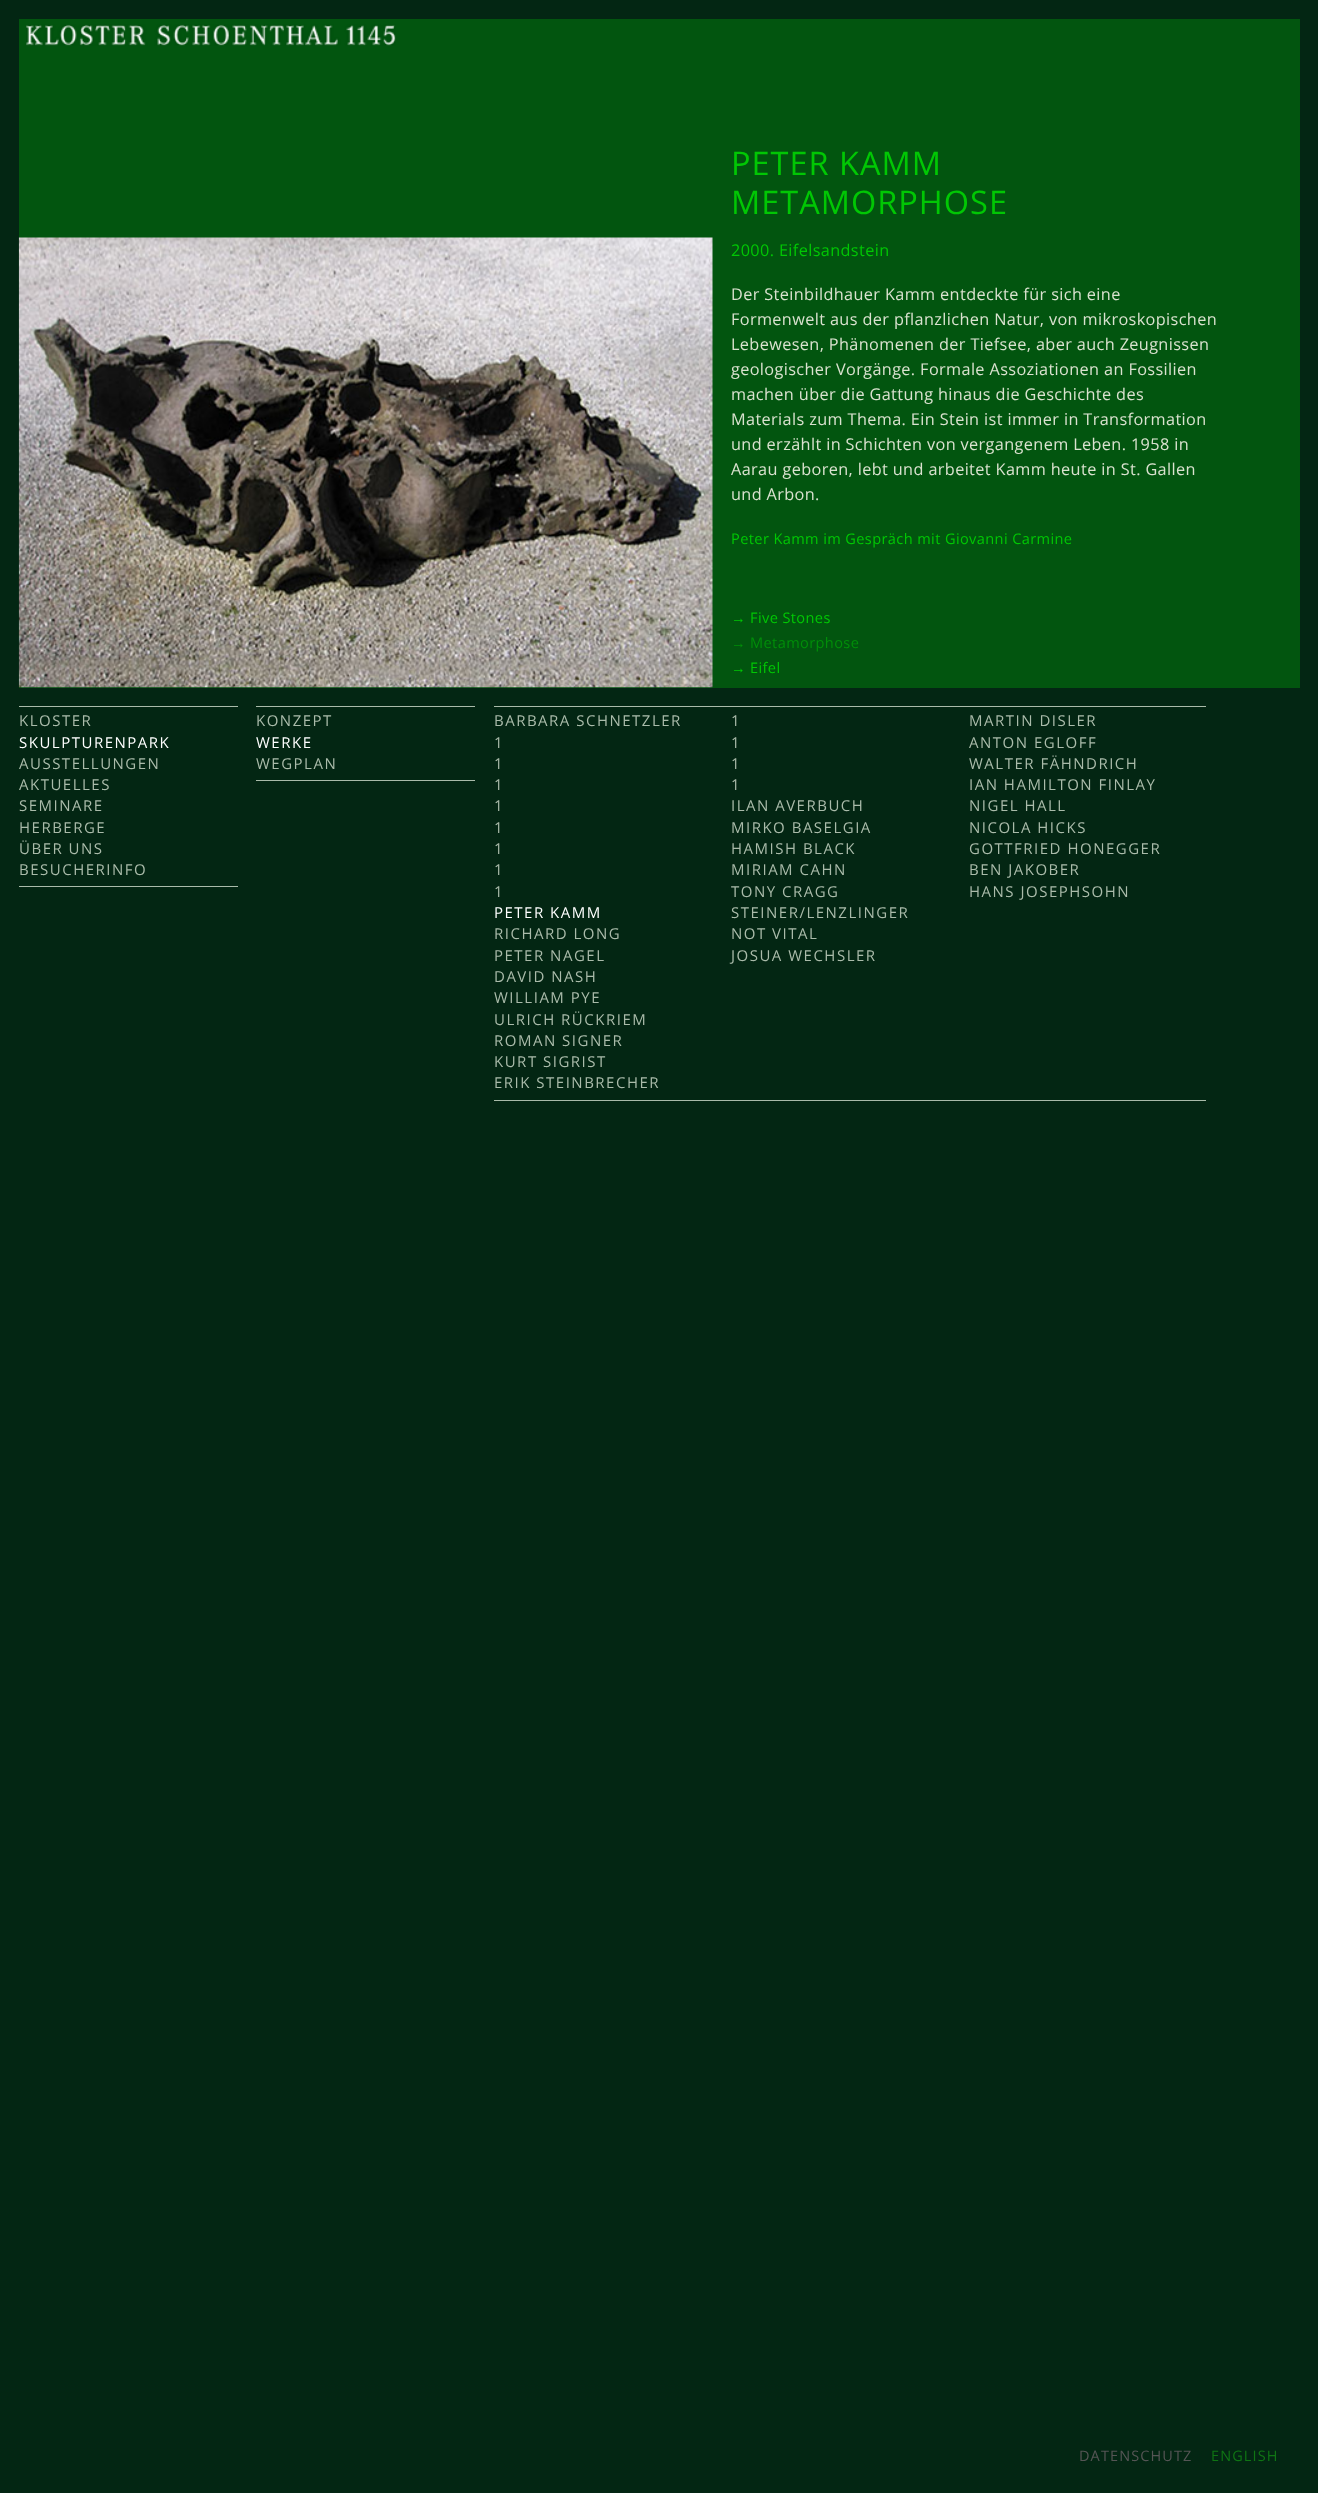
<svg xmlns="http://www.w3.org/2000/svg" xmlns:xlink="http://www.w3.org/1999/xlink" width="1318" height="2493" viewBox="0 0 1318 2493">
<style>
.cls-1{font:32.5px Open Sans;letter-spacing:1px;fill:#01c704}
.cls-2{font:16.25px Open Sans;letter-spacing:0.38px;fill:#01c704}
.cls-3{font:16.25px Open Sans;letter-spacing:0.38px;fill:#dae2cf}
.cls-4{font:14.6px Open Sans;letter-spacing:0.38px;fill:#01c704}
.cls-5{font:14.6px Liberation Sans;letter-spacing:0.38px;fill:#01c704}
.cls-6{font:14.6px Liberation Sans;letter-spacing:0.38px;fill:#018e09}
.cls-7{font:14.6px Open Sans;letter-spacing:0.38px;fill:#018e09}
.cls-8{font:15px Open Sans;letter-spacing:1.5px;fill:#aabbaa}
.cls-9{font:15px Open Sans;letter-spacing:1.5px;fill:#ffffff}
.cls-10{font:14.5px Open Sans;letter-spacing:1.1px;fill:#555555}
.cls-11{font:14.5px Open Sans;letter-spacing:1.1px;fill:#0f7514}
</style>
<rect width="100%" height="100%" fill="#032613"/>
<rect fill="#02550f" x="19" y="19" width="1281" height="669"/>
<image xlink:href="image0.png" x="26" y="24" width="370" height="22"/>
<image xlink:href="image1.png" x="18" y="237" width="695" height="451"/>
<rect fill="#aabbaa" x="19" y="706" width="219" height="1"/>
<rect fill="#aabbaa" x="19" y="886" width="219" height="1"/>
<rect fill="#aabbaa" x="256" y="706" width="219" height="1"/>
<rect fill="#aabbaa" x="256" y="780" width="219" height="1"/>
<rect fill="#aabbaa" x="494" y="706" width="712" height="1"/>
<rect fill="#aabbaa" x="494" y="1100" width="712" height="1"/>
<text class="cls-1"><tspan x="731" y="175">PETER KAMM</tspan><tspan x="731" y="214">METAMORPHOSE</tspan></text>
<text class="cls-2" x="731" y="256">2000. Eifelsandstein</text>
<text class="cls-3"><tspan x="731" y="300">Der Steinbildhauer Kamm entdeckte für sich eine</tspan><tspan x="731" y="325">Formenwelt aus der pflanzlichen Natur, von mikroskopischen</tspan><tspan x="731" y="350">Lebewesen, Phänomenen der Tiefsee, aber auch Zeugnissen</tspan><tspan x="731" y="375">geologischer Vorgänge. Formale Assoziationen an Fossilien</tspan><tspan x="731" y="400">machen über die Gattung hinaus die Geschichte des</tspan><tspan x="731" y="425">Materials zum Thema. Ein Stein ist immer in Transformation</tspan><tspan x="731" y="450">und erzählt in Schichten von vergangenem Leben. 1958 in</tspan><tspan x="731" y="475">Aarau geboren, lebt und arbeitet Kamm heute in St. Gallen</tspan><tspan x="731" y="500">und Arbon.</tspan></text>
<text class="cls-4" x="731" y="544">Peter Kamm im Gespräch mit Giovanni Carmine</text>
<text class="cls-5" x="731" y="623">→</text>
<text class="cls-4" x="750" y="623">Five Stones</text>
<text class="cls-6" x="731" y="648">→</text>
<text class="cls-7" x="750" y="648">Metamorphose</text>
<text class="cls-5" x="731" y="673">→</text>
<text class="cls-4" x="750" y="673">Eifel</text>
<text class="cls-8" x="19" y="726">KLOSTER</text>
<text class="cls-9" x="19" y="748">SKULPTURENPARK</text>
<text class="cls-8"><tspan x="19" y="769">AUSSTELLUNGEN</tspan><tspan x="19" y="790">AKTUELLES</tspan><tspan x="19" y="811">SEMINARE</tspan><tspan x="19" y="833">HERBERGE</tspan><tspan x="19" y="854">ÜBER UNS</tspan><tspan x="19" y="875">BESUCHERINFO</tspan></text>
<text class="cls-8" x="256" y="726">KONZEPT</text>
<text class="cls-9" x="256" y="748">WERKE</text>
<text class="cls-8" x="256" y="769">WEGPLAN</text>
<text class="cls-8"><tspan x="494" y="726">BARBARA SCHNETZLER</tspan><tspan x="494" y="748">1</tspan><tspan x="494" y="769">1</tspan><tspan x="494" y="790">1</tspan><tspan x="494" y="811">1</tspan><tspan x="494" y="833">1</tspan><tspan x="494" y="854">1</tspan><tspan x="494" y="875">1</tspan><tspan x="494" y="897">1</tspan></text>
<text class="cls-8"><tspan x="731" y="726">1</tspan><tspan x="731" y="748">1</tspan><tspan x="731" y="769">1</tspan><tspan x="731" y="790">1</tspan><tspan x="731" y="811">ILAN AVERBUCH</tspan><tspan x="731" y="833">MIRKO BASELGIA</tspan><tspan x="731" y="854">HAMISH BLACK</tspan><tspan x="731" y="875">MIRIAM CAHN</tspan><tspan x="731" y="897">TONY CRAGG</tspan></text>
<text class="cls-8"><tspan x="969" y="726">MARTIN DISLER</tspan><tspan x="969" y="748">ANTON EGLOFF</tspan><tspan x="969" y="769">WALTER FÄHNDRICH</tspan><tspan x="969" y="790">IAN HAMILTON FINLAY</tspan><tspan x="969" y="811">NIGEL HALL</tspan><tspan x="969" y="833">NICOLA HICKS</tspan><tspan x="969" y="854">GOTTFRIED HONEGGER</tspan><tspan x="969" y="875">BEN JAKOBER</tspan><tspan x="969" y="897">HANS JOSEPHSOHN</tspan></text>
<text class="cls-9" x="494" y="918">PETER KAMM</text>
<text class="cls-8"><tspan x="494" y="939">RICHARD LONG</tspan><tspan x="494" y="961">PETER NAGEL</tspan><tspan x="494" y="982">DAVID NASH</tspan><tspan x="494" y="1003">WILLIAM PYE</tspan><tspan x="494" y="1025">ULRICH RÜCKRIEM</tspan><tspan x="494" y="1046">ROMAN SIGNER</tspan><tspan x="494" y="1067">KURT SIGRIST</tspan><tspan x="494" y="1088">ERIK STEINBRECHER</tspan></text>
<text class="cls-8"><tspan x="731" y="918">STEINER/LENZLINGER</tspan><tspan x="731" y="939">NOT VITAL</tspan><tspan x="731" y="961">JOSUA WECHSLER</tspan></text>
<text class="cls-10" x="1079" y="2461">DATENSCHUTZ</text>
<text class="cls-11" x="1211" y="2461">ENGLISH</text>
</svg>
